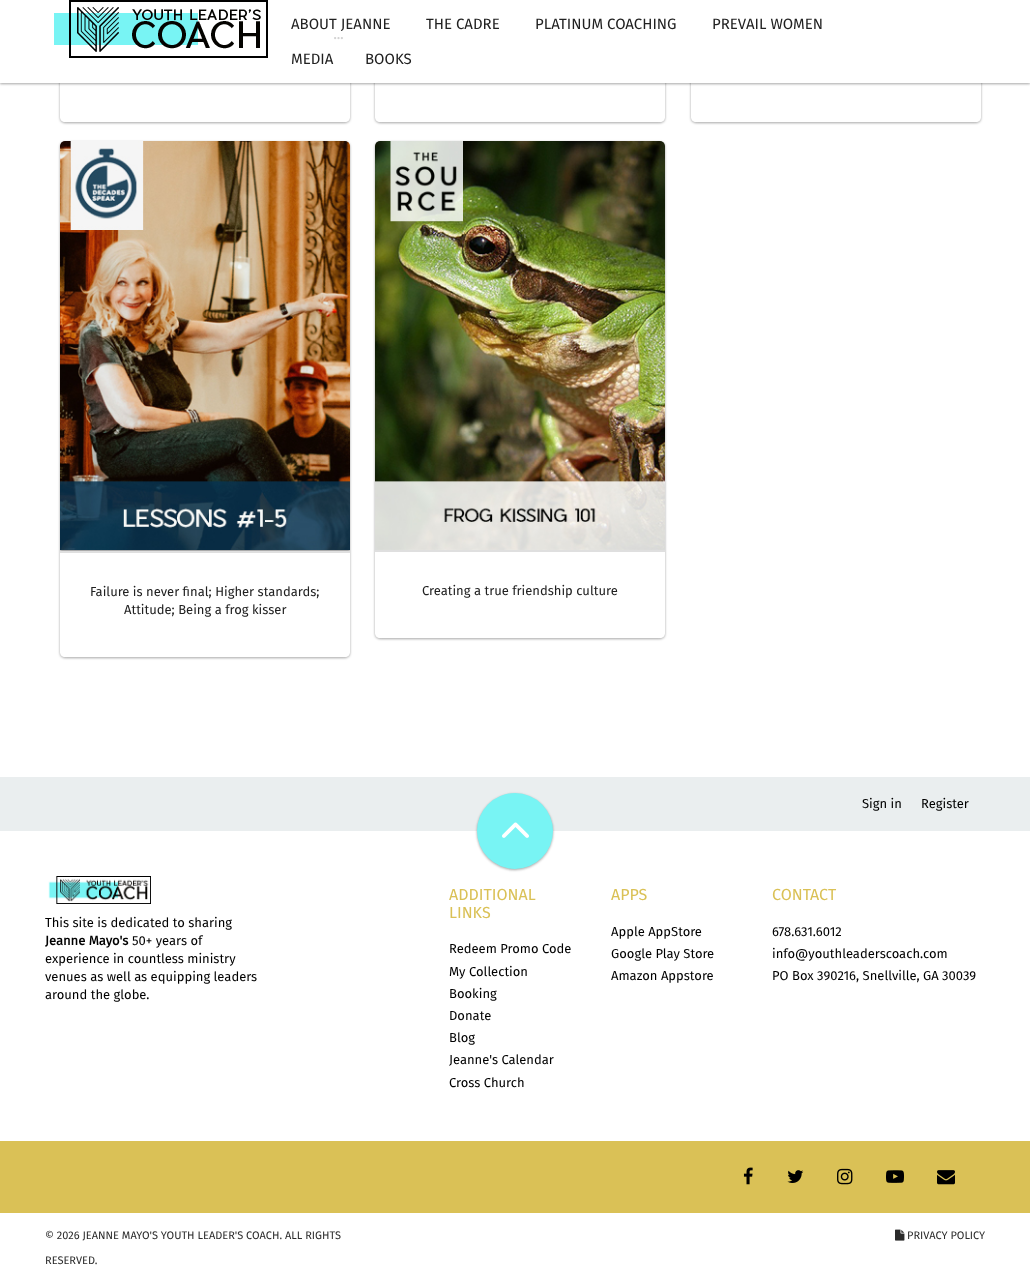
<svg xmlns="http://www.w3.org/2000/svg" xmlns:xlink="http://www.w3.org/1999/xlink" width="1030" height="1280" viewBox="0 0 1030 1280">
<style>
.cls-1{font:15px Fira Sans;fill:#212121}
.cls-2{font:13px Fira Sans;fill:#212121}
.cls-3{font:13px Fira Sans;fill:#000000}
.cls-4{font:bold 13px Fira Sans;fill:#000000}
.cls-5{font:16px Fira Sans;fill:#dac156}
.cls-6{font:11px Fira Sans;fill:#2b2b2b}
</style>
<rect width="100%" height="100%" fill="#ffffff"/>
<rect fill="#000000" fill-opacity="0.24" filter="blur(1px)" x="60" y="-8" width="290" height="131" rx="5"/>
<rect fill="#000000" fill-opacity="0.12" filter="blur(1.5px)" x="60" y="-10" width="290" height="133" rx="5"/>
<path fill="#ffffff" d="M60 16H350V117C350 120 348 122 345 122H65C62 122 60 120 60 117Z"/>
<rect fill="#000000" fill-opacity="0.24" filter="blur(1px)" x="375" y="-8" width="290" height="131" rx="5"/>
<rect fill="#000000" fill-opacity="0.12" filter="blur(1.5px)" x="375" y="-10" width="290" height="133" rx="5"/>
<path fill="#ffffff" d="M375 16H665V117C665 120 663 122 660 122H380C377 122 375 120 375 117Z"/>
<rect fill="#000000" fill-opacity="0.24" filter="blur(1px)" x="691" y="-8" width="290" height="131" rx="5"/>
<rect fill="#000000" fill-opacity="0.12" filter="blur(1.5px)" x="691" y="-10" width="290" height="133" rx="5"/>
<path fill="#ffffff" d="M691 16H981V117C981 120 979 122 976 122H696C693 122 691 120 691 117Z"/>
<rect fill="#000000" fill-opacity="0.24" filter="blur(1px)" x="0" y="1" width="1030" height="83"/>
<rect fill="#000000" fill-opacity="0.12" filter="blur(1.5px)" x="0" y="1" width="1030" height="83"/>
<rect fill="#ffffff" x="0" y="0" width="1030" height="83"/>
<image xlink:href="image0.png" x="54" y="0" width="214" height="58"/>
<image xlink:href="image1.png" x="334" y="37" width="9" height="3"/>
<rect fill="#000000" fill-opacity="0.24" filter="blur(1px)" x="60" y="142" width="290" height="516" rx="5"/>
<rect fill="#000000" fill-opacity="0.12" filter="blur(1.5px)" x="60" y="142" width="290" height="516" rx="5"/>
<image xlink:href="image2.png" x="60" y="141" width="290" height="409"/>
<path fill="#ffffff" d="M60 551H350V652C350 655 348 657 345 657H65C62 657 60 655 60 652Z"/>
<rect fill="#dfdfdf" x="60" y="551" width="290" height="2"/>
<rect fill="#000000" fill-opacity="0.24" filter="blur(1px)" x="375" y="142" width="290" height="497" rx="5"/>
<rect fill="#000000" fill-opacity="0.12" filter="blur(1.5px)" x="375" y="142" width="290" height="497" rx="5"/>
<image xlink:href="image3.png" x="375" y="141" width="290" height="409"/>
<path fill="#ffffff" d="M375 550H665V633C665 636 663 638 660 638H380C377 638 375 636 375 633Z"/>
<rect fill="#dfdfdf" x="375" y="550" width="290" height="2"/>
<rect fill="#eaeeef" x="0" y="777" width="1030" height="54"/>
<rect fill="#000000" fill-opacity="0.24" filter="blur(1px)" x="477" y="794" width="76" height="76" rx="38"/>
<rect fill="#000000" fill-opacity="0.12" filter="blur(1.5px)" x="477" y="794" width="76" height="76" rx="38"/>
<circle fill="#78f4f4" cx="515" cy="831" r="38"/>
<image xlink:href="image4.png" x="502" y="822" width="27" height="16"/>
<image xlink:href="image5.png" x="48" y="876" width="103" height="28"/>
<rect fill="#dac156" x="0" y="1141" width="1030" height="72"/>
<image xlink:href="image6.png" x="743" y="1167" width="10" height="18"/>
<image xlink:href="image7.png" x="787" y="1170" width="17" height="13"/>
<image xlink:href="image8.png" x="837" y="1168" width="16" height="17"/>
<image xlink:href="image9.png" x="886" y="1170" width="18" height="13"/>
<image xlink:href="image10.png" x="937" y="1170" width="18" height="15"/>
<image xlink:href="image11.png" x="895" y="1229" width="10" height="12"/>
<text class="cls-1" x="291" y="29">ABOUT JEANNE</text>
<text class="cls-1" x="426" y="29">THE CADRE</text>
<text class="cls-1" x="535" y="29">PLATINUM COACHING</text>
<text class="cls-1" x="712" y="29">PREVAIL WOMEN</text>
<text class="cls-1" x="291" y="64">MEDIA</text>
<text class="cls-1" x="365" y="64">BOOKS</text>
<text class="cls-2" x="90" y="596">Failure is never final; Higher standards;</text>
<text class="cls-2" x="124" y="614">Attitude; Being a frog kisser</text>
<text class="cls-2" x="422" y="595">Creating a true friendship culture</text>
<text class="cls-3" x="862" y="808">Sign in</text>
<text class="cls-3" x="921" y="808">Register</text>
<text class="cls-3" x="45" y="927">This site is dedicated to sharing</text>
<text class="cls-4" x="45" y="945">Jeanne Mayo's</text>
<text class="cls-3" x="132" y="945">50+ years of</text>
<text class="cls-3"><tspan x="45" y="963">experience in countless ministry</tspan><tspan x="45" y="981">venues as well as equipping leaders</tspan><tspan x="45" y="999">around the globe.</tspan></text>
<text class="cls-5"><tspan x="449" y="900">ADDITIONAL</tspan><tspan x="449" y="918">LINKS</tspan></text>
<text class="cls-3"><tspan x="449" y="953">Redeem Promo Code</tspan><tspan x="449" y="976">My Collection</tspan><tspan x="449" y="998">Booking</tspan><tspan x="449" y="1020">Donate</tspan><tspan x="449" y="1042">Blog</tspan><tspan x="449" y="1064">Jeanne's Calendar</tspan><tspan x="449" y="1087">Cross Church</tspan></text>
<text class="cls-5" x="611" y="900">APPS</text>
<text class="cls-3"><tspan x="611" y="936">Apple AppStore</tspan><tspan x="611" y="958">Google Play Store</tspan><tspan x="611" y="980">Amazon Appstore</tspan></text>
<text class="cls-5" x="772" y="900">CONTACT</text>
<text class="cls-3"><tspan x="772" y="936">678.631.6012</tspan><tspan x="772" y="958">info@youthleaderscoach.com</tspan><tspan x="772" y="980">PO Box 390216, Snellville, GA 30039</tspan></text>
<text class="cls-6" x="45" y="1239">© 2026 JEANNE MAYO'S YOUTH LEADER'S COACH. ALL RIGHTS</text>
<text class="cls-6" x="45" y="1264">RESERVED.</text>
<text class="cls-6" x="907" y="1239">PRIVACY POLICY</text>
</svg>
